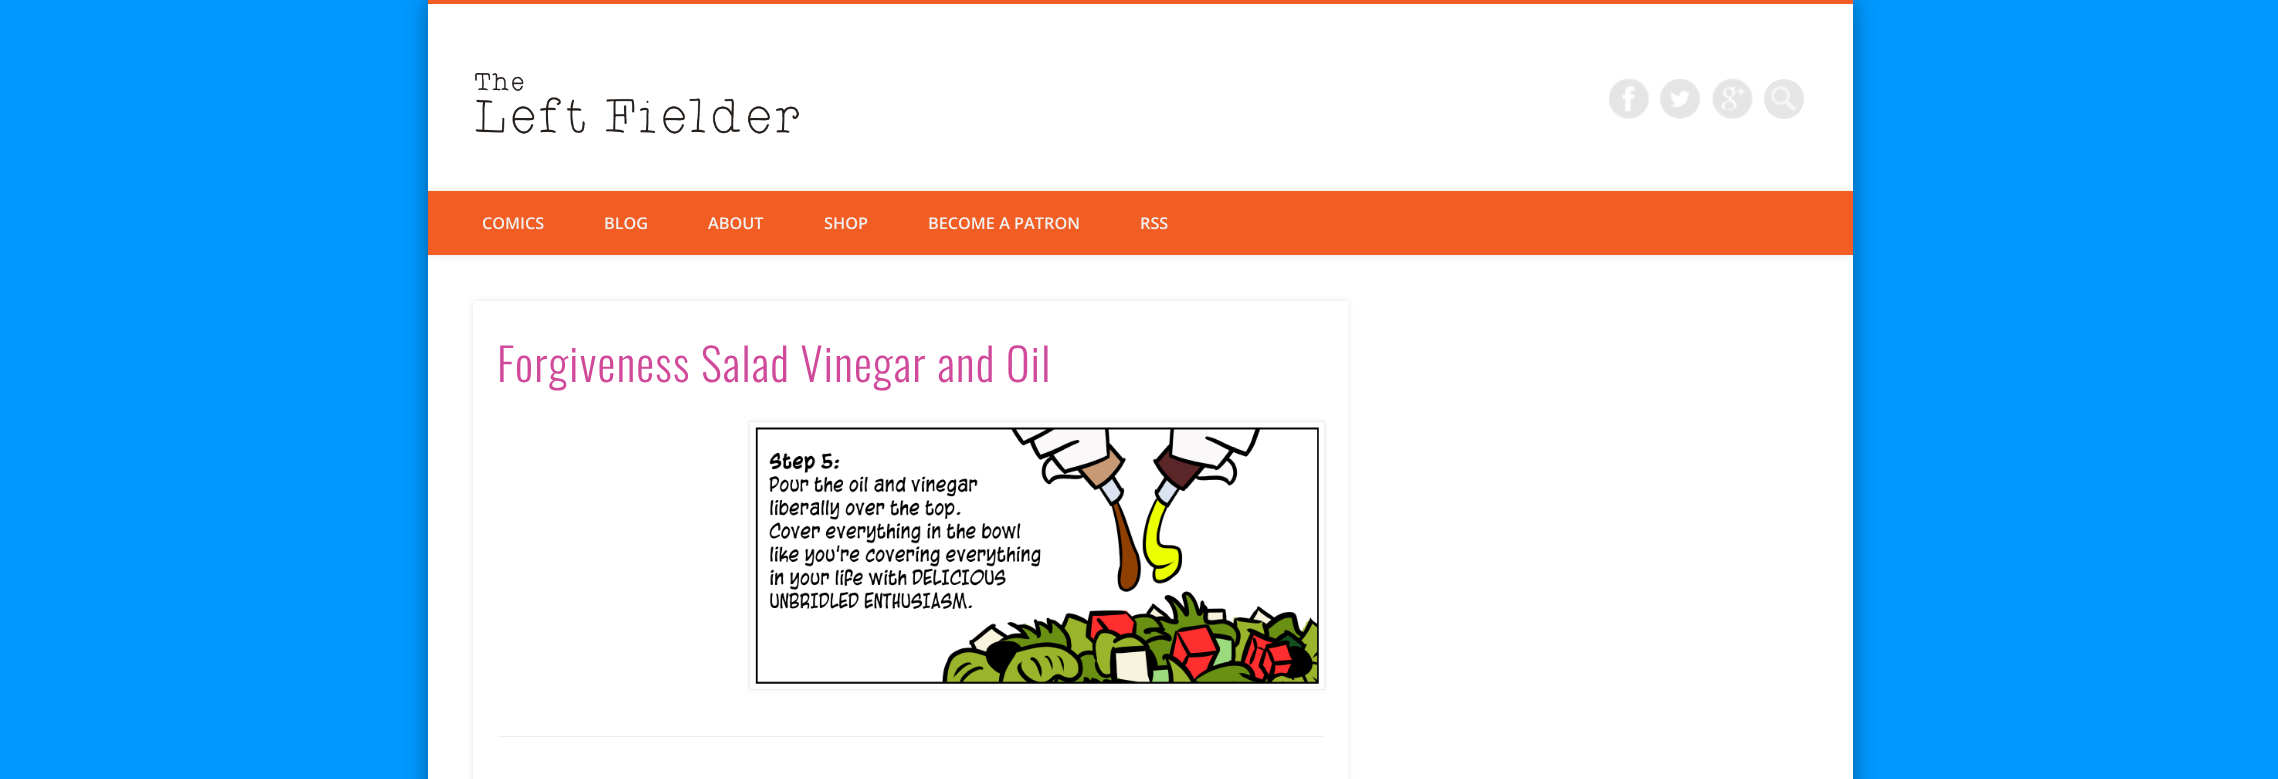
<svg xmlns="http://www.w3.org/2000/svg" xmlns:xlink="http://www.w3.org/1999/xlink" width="2278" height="779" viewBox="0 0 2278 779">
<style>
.cls-1{font:600 16.25px Open Sans;fill:#f0f0f0}
.cls-2{font:300 45px Oswald;letter-spacing:1.25px;fill:#d0499a}
</style>
<defs>
<clipPath id="clip1"><rect x="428" y="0" width="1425" height="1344"/></clipPath>
</defs>
<rect width="100%" height="100%" fill="#0099ff"/>
<rect fill="#000000" fill-opacity="0.4" filter="blur(11px)" x="428" y="0" width="1425" height="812"/>
<rect fill="#ffffff" x="428" y="4" width="1425" height="775"/>
<rect fill="#f15d22" x="428" y="0" width="1425" height="4"/>
<image xlink:href="image0.png" x="475" y="73" width="324" height="61"/>
<image xlink:href="image1.png" x="1609" y="78" width="40" height="41"/>
<image xlink:href="image2.png" x="1660" y="79" width="40" height="40"/>
<image xlink:href="image3.png" x="1712" y="78" width="41" height="41"/>
<circle fill="#e6e6e6" cx="1784" cy="99" r="20"/>
<image xlink:href="image4.png" x="1771" y="86" width="25" height="25"/>
<g clip-path="url(#clip1)">
<rect fill="#000000" fill-opacity="0.1" filter="blur(4.5px)" x="428" y="191" width="1425" height="64"/>
</g>
<rect fill="#f15d22" x="428" y="191" width="1425" height="64"/>
<rect fill="#000000" fill-opacity="0.1" filter="blur(3px)" x="473" y="301" width="875" height="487"/>
<rect fill="#ffffff" x="473" y="301" width="875" height="478"/>
<rect fill="#eeeeee" filter="blur(2px)" x="749" y="421" width="576" height="269"/>
<rect fill="#ffffff" stroke="#eeeeee" x="749.5" y="421.5" width="575" height="268"/>
<image xlink:href="image5.png" x="755" y="427" width="564" height="257"/>
<rect fill="#eeeeee" x="498" y="736" width="825" height="1"/>
<text class="cls-1" x="482" y="229">COMICS</text>
<text class="cls-1" x="604" y="229">BLOG</text>
<text class="cls-1" x="708" y="229">ABOUT</text>
<text class="cls-1" x="824" y="229">SHOP</text>
<text class="cls-1" x="928" y="229">BECOME A PATRON</text>
<text class="cls-1" x="1140" y="229">RSS</text>
<text class="cls-2" x="497" y="382">Forgiveness Salad Vinegar and Oil</text>
</svg>
